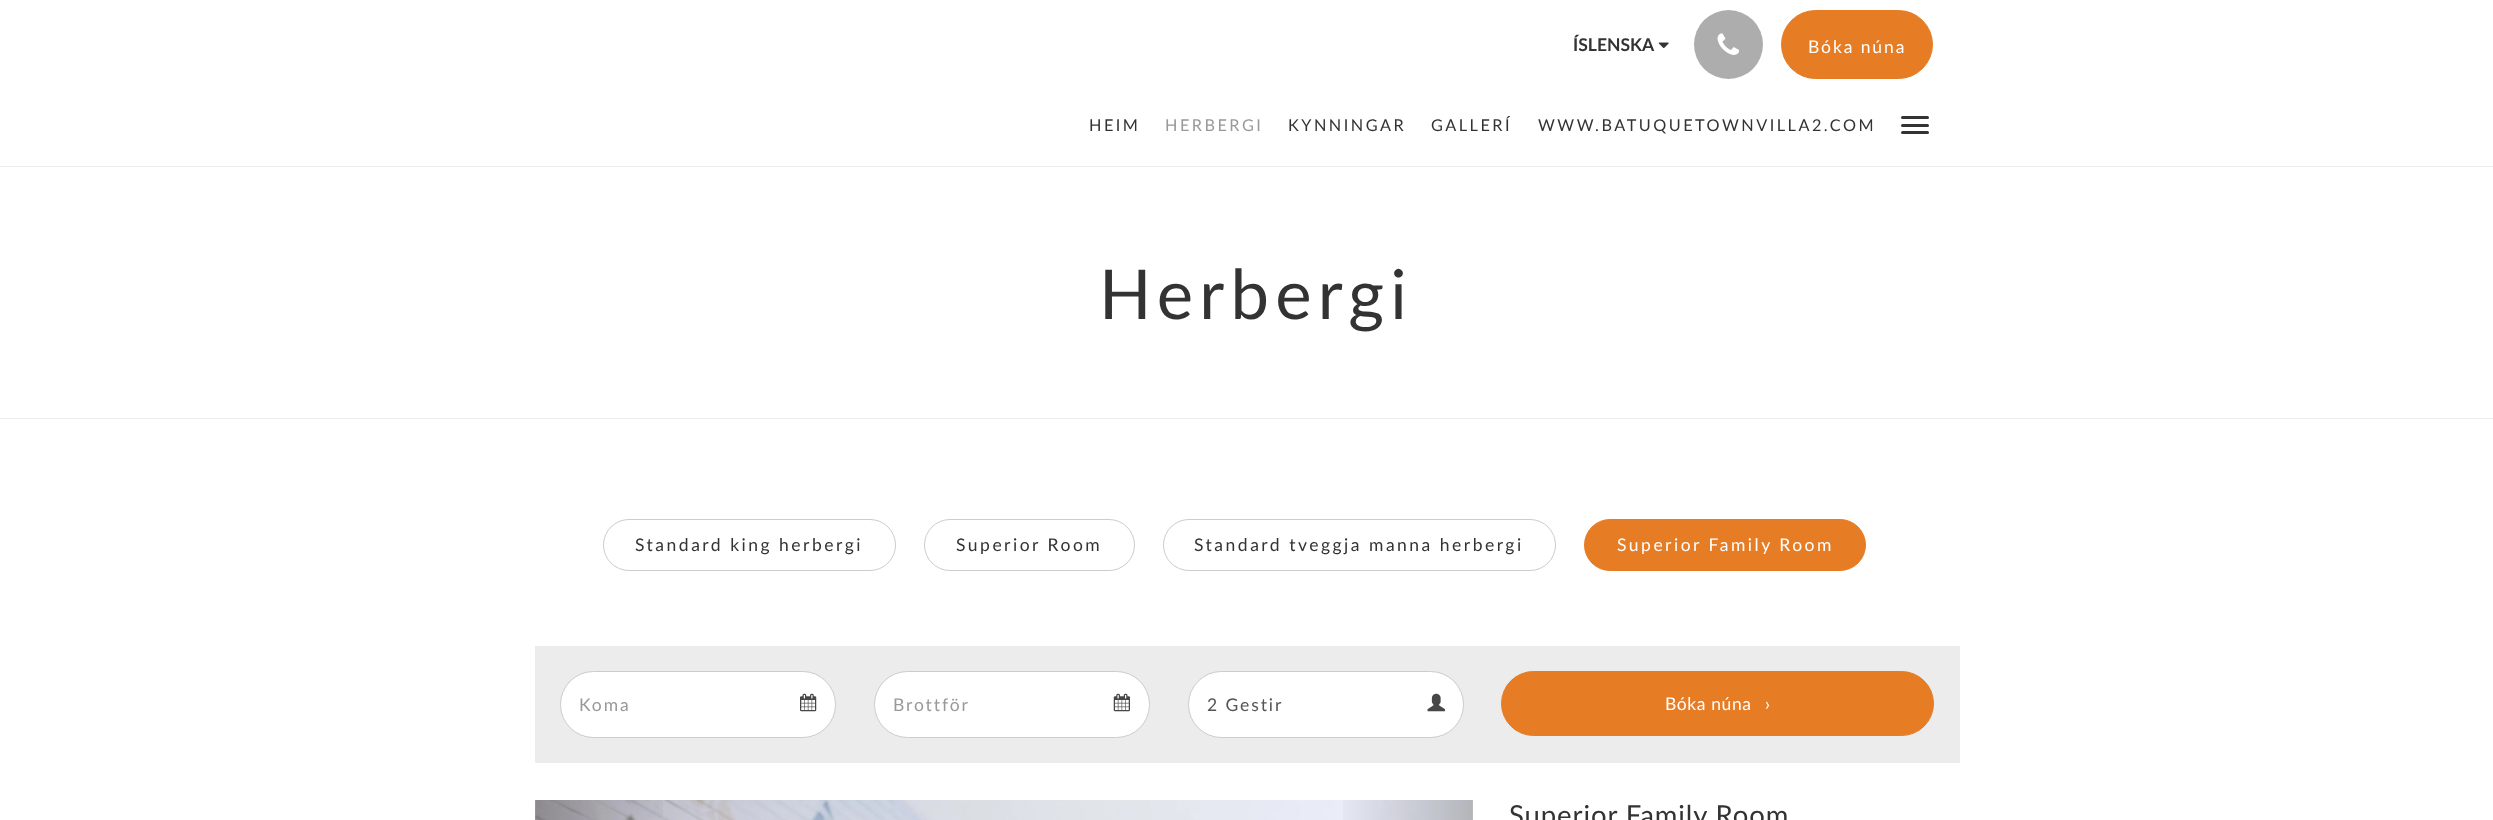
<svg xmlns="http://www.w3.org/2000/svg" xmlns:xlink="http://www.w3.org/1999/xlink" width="2493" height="820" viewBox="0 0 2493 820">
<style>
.cls-1{font:bold 17.5px Lato;fill:#333333}
.cls-2{font:17.5px Lato;letter-spacing:1.9px;fill:#ffffff}
.cls-3{font:16.25px Lato;letter-spacing:2.5px;fill:#333333}
.cls-4{font:16.25px Lato;letter-spacing:2.5px;fill:#999999}
.cls-5{font:68.75px Lato;letter-spacing:6.25px;fill:#333333}
.cls-6{font:17.5px Lato;letter-spacing:2.5px;fill:#333333}
.cls-7{font:17.5px Lato;letter-spacing:2.5px;fill:#ffffff}
.cls-8{font:17.5px Lato;letter-spacing:1.9px;fill:#999999}
.cls-9{font:17.5px Lato;letter-spacing:1.9px;fill:#555555}
.cls-10{font:17.5px Lato;letter-spacing:0.6px;fill:#ffffff}
.cls-11{font:27.5px Lato;letter-spacing:0.9px;fill:#333333}
</style>
<defs>
<linearGradient id="g1" gradientUnits="userSpaceOnUse" x1="535" y1="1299" x2="675" y2="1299"><stop offset="0" stop-color="#000000" stop-opacity="0.25"/><stop offset="1" stop-color="#000000" stop-opacity="0"/></linearGradient>
<linearGradient id="g2" gradientUnits="userSpaceOnUse" x1="1331" y1="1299" x2="1473" y2="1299"><stop offset="0" stop-color="#000000" stop-opacity="0"/><stop offset="1" stop-color="#000000" stop-opacity="0.25"/></linearGradient>
</defs>
<rect width="100%" height="100%" fill="#ffffff"/>
<image xlink:href="image0.png" x="1658" y="42" width="11" height="7"/>
<circle fill="#adadad" cx="1728.5" cy="44.5" r="34.5"/>
<image xlink:href="image1.png" x="1717" y="33" width="23" height="22"/>
<rect fill="#e67c24" stroke="#e67c24" x="1781.5" y="10.5" width="151" height="68" rx="34"/>
<rect fill="#333333" x="1901" y="116" width="28" height="3" rx="1.5"/>
<rect fill="#333333" x="1901" y="124" width="28" height="3" rx="1.5"/>
<rect fill="#333333" x="1901" y="131" width="28" height="3" rx="1.5"/>
<rect fill="#ececec" x="0" y="166" width="2493" height="1"/>
<rect fill="#ececec" x="0" y="418" width="2493" height="1"/>
<rect fill="none" stroke="#cccccc" x="603.5" y="519.5" width="292" height="51" rx="25.5"/>
<rect fill="none" stroke="#cccccc" x="924.5" y="519.5" width="210" height="51" rx="25.5"/>
<rect fill="none" stroke="#cccccc" x="1163.5" y="519.5" width="392" height="51" rx="25.5"/>
<rect fill="#e67c24" stroke="#e67c24" x="1584.5" y="519.5" width="281" height="51" rx="25.5"/>
<rect fill="#ececec" x="535" y="646" width="1425" height="117"/>
<rect fill="#ffffff" stroke="#cccccc" x="560.5" y="671.5" width="275" height="66" rx="33"/>
<image xlink:href="image2.png" x="800" y="693" width="17" height="19"/>
<rect fill="#ffffff" stroke="#cccccc" x="874.5" y="671.5" width="275" height="66" rx="33"/>
<image xlink:href="image3.png" x="1113" y="693" width="17" height="19"/>
<rect fill="#ffffff" stroke="#cccccc" x="1188.5" y="671.5" width="275" height="66" rx="33"/>
<image xlink:href="image4.png" x="1427" y="693" width="18" height="19"/>
<rect fill="#e67c24" stroke="#e67c24" x="1501.5" y="671.5" width="432" height="64" rx="32"/>
<image xlink:href="image5.png" x="535" y="800" width="938" height="20"/>
<rect fill="url(#g1)" x="535" y="800" width="128" height="20"/>
<rect fill="url(#g2)" x="1343" y="800" width="130" height="20"/>
<text class="cls-1" x="1573" y="51">ÍSLENSKA</text>
<text class="cls-2" x="1808" y="53">Bóka núna</text>
<text class="cls-3" x="1089" y="131">HEIM</text>
<text class="cls-4" x="1165" y="131">HERBERGI</text>
<text class="cls-3" x="1288" y="131">KYNNINGAR</text>
<text class="cls-3" x="1431" y="131">GALLERÍ</text>
<text class="cls-3" x="1538" y="131">WWW.BATUQUETOWNVILLA2.COM</text>
<text class="cls-5" x="1099" y="319">Herbergi</text>
<text class="cls-6" x="635" y="551">Standard king herbergi</text>
<text class="cls-6" x="956" y="551">Superior Room</text>
<text class="cls-6" x="1194" y="551">Standard tveggja manna herbergi</text>
<text class="cls-7" x="1617" y="551">Superior Family Room</text>
<text class="cls-8" x="579" y="711">Koma</text>
<text class="cls-8" x="893" y="711">Brottför</text>
<text class="cls-9" x="1207" y="711">2 Gestir</text>
<text class="cls-10" x="1665" y="710">Bóka núna</text>
<text class="cls-10" x="1765" y="710">›</text>
<text class="cls-11" x="1509" y="825">Superior Family Room</text>
</svg>
